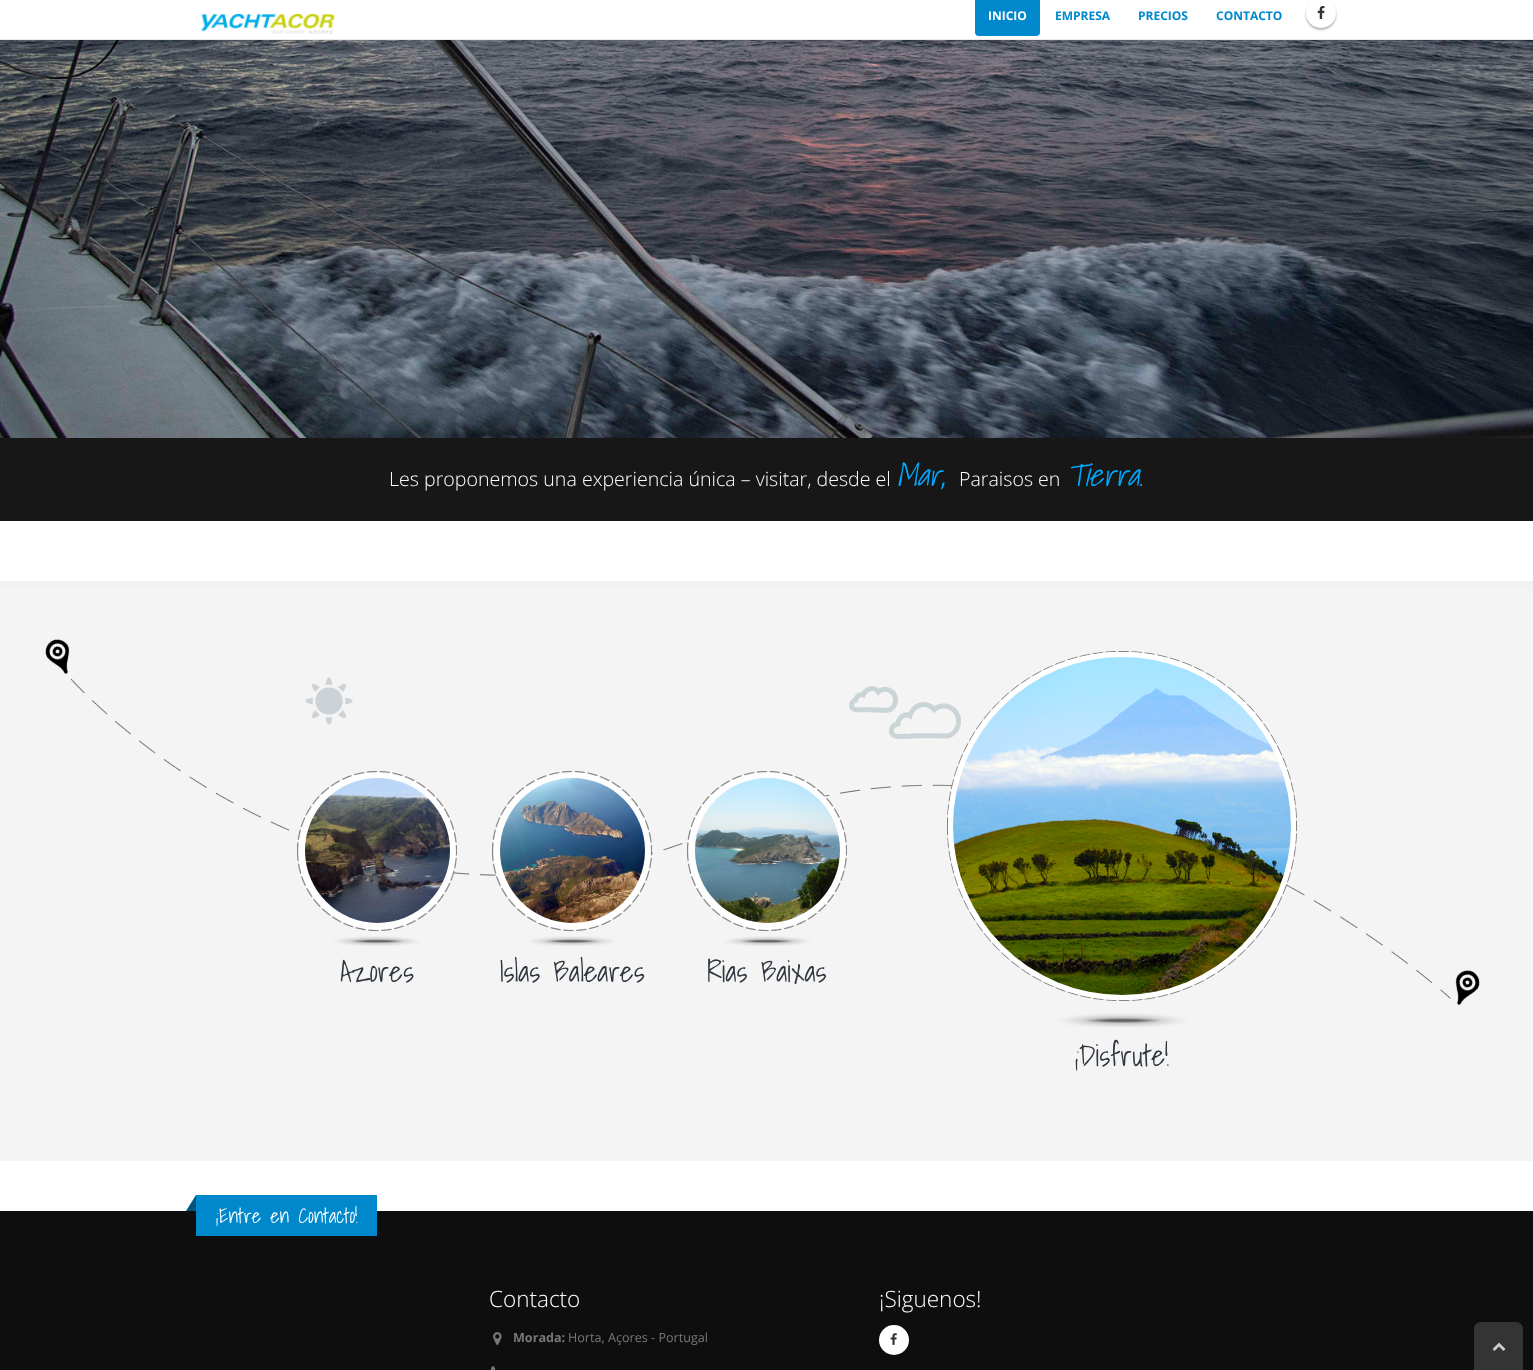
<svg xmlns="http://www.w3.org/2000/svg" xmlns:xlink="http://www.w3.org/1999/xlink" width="1533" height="1370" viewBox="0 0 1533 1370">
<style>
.cls-1{font:bold 12px Open Sans;fill:#ffffff}
.cls-2{font:bold 12px Open Sans;fill:#0088cc}
.cls-3{font:300 19.6px Open Sans;fill:#ffffff}
.cls-4{font:italic 31px Shadows Into Light;fill:#00aaff}
.cls-5{font:29.5px Shadows Into Light;fill:#2e353e}
.cls-6{font:20.25px Shadows Into Light;fill:#ffffff}
.cls-7{font:300 22.5px Open Sans;fill:#ffffff}
.cls-8{font:bold 12.6px Open Sans;fill:#777777}
.cls-9{font:12.6px Open Sans;fill:#777777}
</style>
<rect width="100%" height="100%" fill="#ffffff"/>
<image xlink:href="image2.png" x="0" y="40" width="1533" height="398"/>
<rect fill="#000000" fill-opacity="0.1" filter="blur(1.5px)" x="0" y="-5" width="1533" height="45"/>
<rect fill="#ffffff" x="0" y="0" width="1533" height="39"/>
<rect fill="#e9e9e9" x="0" y="39" width="1533" height="1"/>
<image xlink:href="image0.png" x="201" y="14" width="134" height="20"/>
<rect fill="#0088cc" x="975" y="-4" width="65" height="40" rx="4"/>
<rect fill="#000000" fill-opacity="0.3" filter="blur(1px)" x="1306" y="0" width="30" height="30" rx="15"/>
<circle fill="#ffffff" cx="1321" cy="13" r="15"/>
<image xlink:href="image1.png" x="1317" y="6" width="8" height="13"/>
<rect fill="#171717" x="0" y="438" width="1533" height="83"/>
<rect fill="#f4f4f4" x="0" y="586" width="1533" height="575"/>
<rect fill="#f1f1f1" x="0" y="581" width="1533" height="5"/>
<image xlink:href="image3.png" x="45" y="639" width="1435" height="366"/>
<image xlink:href="image4.png" x="305" y="677" width="48" height="48"/>
<image xlink:href="image5.png" x="849" y="686" width="112" height="53"/>
<image xlink:href="image6.png" x="297" y="771" width="160" height="175"/>
<image xlink:href="image7.png" x="305" y="778" width="145" height="145"/>
<image xlink:href="image8.png" x="492" y="771" width="160" height="175"/>
<image xlink:href="image9.png" x="500" y="778" width="145" height="145"/>
<image xlink:href="image10.png" x="687" y="771" width="160" height="175"/>
<image xlink:href="image11.png" x="695" y="778" width="145" height="145"/>
<image xlink:href="image12.png" x="947" y="651" width="350" height="376"/>
<image xlink:href="image13.png" x="953" y="657" width="338" height="338"/>
<rect fill="#0e0e0e" x="0" y="1211" width="1533" height="159"/>
<rect fill="#0088cc" x="196" y="1195" width="181" height="41"/>
<path fill="#005580" d="M196 1195V1211H186Z"/>
<image xlink:href="image14.png" x="493" y="1332" width="9" height="13"/>
<image xlink:href="image15.png" x="491" y="1366" width="5" height="4"/>
<circle fill="#ffffff" cx="894" cy="1340" r="15"/>
<image xlink:href="image16.png" x="890" y="1333" width="7" height="12"/>
<path fill="#343434" d="M1481 1322H1516C1520 1322 1523 1325 1523 1329V1370H1474V1329C1474 1325 1477 1322 1481 1322Z"/>
<image xlink:href="image17.png" x="1492" y="1342" width="14" height="9"/>
<text class="cls-1" x="988" y="20">INICIO</text>
<text class="cls-2" x="1055" y="20">EMPRESA</text>
<text class="cls-2" x="1138" y="20">PRECIOS</text>
<text class="cls-2" x="1216" y="20">CONTACTO</text>
<text class="cls-3" x="389" y="486">Les proponemos una experiencia única – visitar, desde el</text>
<text class="cls-4" x="896" y="486">Mar,</text>
<text class="cls-3" x="959" y="486">Paraisos en</text>
<text class="cls-4" x="1066" y="486">Tierra.</text>
<text class="cls-5" x="340" y="982">Azores</text>
<text class="cls-5" x="499" y="982">Islas Baleares</text>
<text class="cls-5" x="707" y="982">Rias Baixas</text>
<text class="cls-5" x="1075" y="1066">¡Disfrute!</text>
<text class="cls-6" x="216" y="1223">¡Entre en Contacto!</text>
<text class="cls-7" x="489" y="1307">Contacto</text>
<text class="cls-8" x="513" y="1342">Morada:</text>
<text class="cls-9" x="568" y="1342">Horta, Açores - Portugal</text>
<text class="cls-7" x="879" y="1307">¡Siguenos!</text>
</svg>
